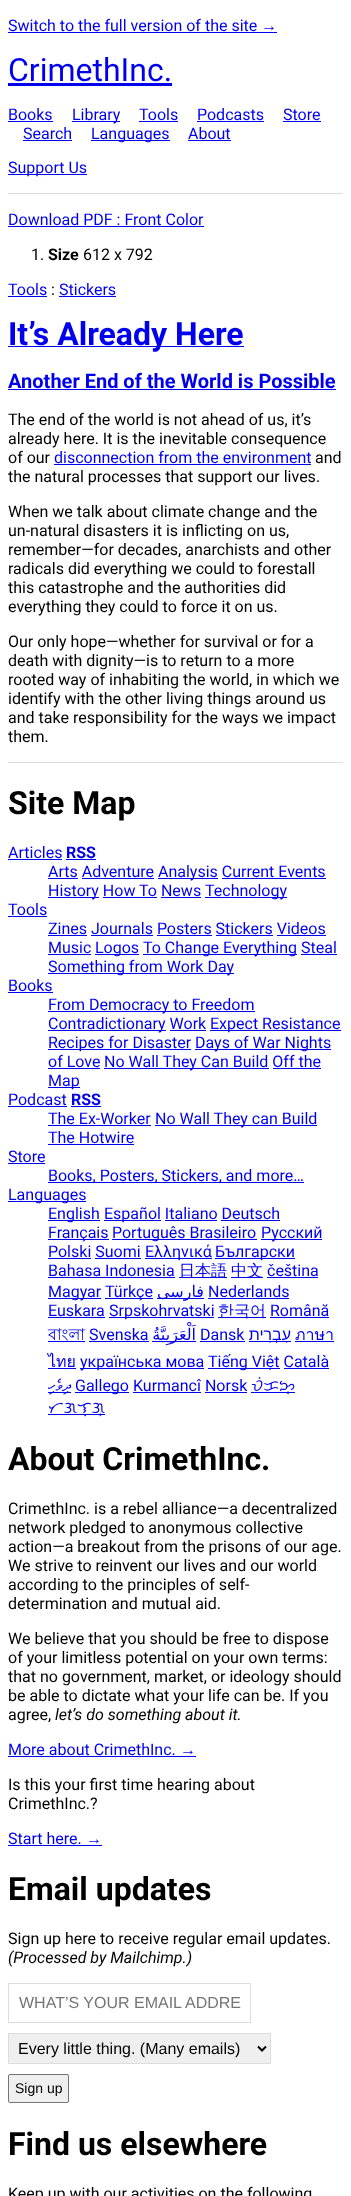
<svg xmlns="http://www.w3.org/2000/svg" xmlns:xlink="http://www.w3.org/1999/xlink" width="351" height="2196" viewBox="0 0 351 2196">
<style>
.cls-1{font:16px Roboto;fill:#0000ee}
.cls-2{font:16px Liberation Sans;fill:#0000ee}
.cls-3{font:32px Roboto;fill:#0000ee}
.cls-4{font:16px Roboto;fill:#000000}
.cls-5{font:bold 16px Roboto;fill:#000000}
.cls-6{font:bold 32px Roboto;fill:#0000ee}
.cls-7{font:bold 20px Roboto;fill:#0000ee}
.cls-8{font:bold 32px Roboto;fill:#000000}
.cls-9{font:bold 16px Roboto;fill:#0000ee}
.cls-10{font:500 16px WenQuanYi Zen Hei;fill:#0000ee}
.cls-11{font:16px DejaVu Sans;direction:rtl;fill:#0000ee}
.cls-12{font:16px Lohit Bengali;fill:#0000ee}
.cls-13{font:16px Liberation Sans;direction:rtl;fill:#0000ee}
.cls-14{font:16px Loma;fill:#0000ee}
.cls-15{font:16px FreeSerif;direction:rtl;fill:#0000ee}
.cls-16{font:16px Noto Sans Tagalog;fill:#0000ee}
.cls-17{font:italic 16px Roboto;fill:#000000}
.cls-18{font:16px Liberation Sans;fill:#757575}
.cls-19{font:16px Liberation Sans;fill:#000000}
.cls-20{font:14px Liberation Sans;fill:#000000}
</style>
<rect width="100%" height="100%" fill="#ffffff"/>
<rect fill="#0000ee" x="8" y="32" width="269" height="1"/>
<rect fill="#0000ee" x="8" y="83" width="164" height="3"/>
<rect fill="#0000ee" x="8" y="121" width="45" height="1"/>
<rect fill="#0000ee" x="72" y="121" width="48" height="1"/>
<rect fill="#0000ee" x="139" y="121" width="39" height="1"/>
<rect fill="#0000ee" x="197" y="121" width="67" height="1"/>
<rect fill="#0000ee" x="283" y="121" width="38" height="1"/>
<rect fill="#0000ee" x="23" y="140" width="49" height="1"/>
<rect fill="#0000ee" x="91" y="140" width="79" height="1"/>
<rect fill="#0000ee" x="188" y="140" width="43" height="1"/>
<rect fill="#0000ee" x="8" y="174" width="79" height="1"/>
<rect fill="#dddddd" x="8" y="193" width="335" height="1"/>
<rect fill="#dddddd" x="8" y="762" width="335" height="1"/>
<rect fill="#0000ee" x="8" y="226" width="196" height="1"/>
<rect fill="#0000ee" x="8" y="296" width="39" height="1"/>
<rect fill="#0000ee" x="59" y="296" width="57" height="1"/>
<rect fill="#0000ee" x="8" y="346" width="236" height="1"/>
<rect fill="#0000ee" x="8" y="389" width="328" height="1"/>
<rect fill="#0000ee" x="54" y="464" width="257" height="1"/>
<rect fill="#0000ee" x="8" y="859" width="54" height="1"/>
<rect fill="#0000ee" x="66" y="859" width="30" height="1"/>
<rect fill="#0000ee" x="48" y="878" width="30" height="1"/>
<rect fill="#0000ee" x="158" y="878" width="60" height="1"/>
<rect fill="#0000ee" x="82" y="878" width="72" height="1"/>
<rect fill="#0000ee" x="222" y="878" width="104" height="1"/>
<rect fill="#0000ee" x="48" y="897" width="51" height="1"/>
<rect fill="#0000ee" x="205" y="897" width="82" height="1"/>
<rect fill="#0000ee" x="103" y="897" width="54" height="1"/>
<rect fill="#0000ee" x="161" y="897" width="40" height="1"/>
<rect fill="#0000ee" x="8" y="916" width="39" height="1"/>
<rect fill="#0000ee" x="48" y="935" width="39" height="1"/>
<rect fill="#0000ee" x="91" y="935" width="62" height="1"/>
<rect fill="#0000ee" x="157" y="935" width="55" height="1"/>
<rect fill="#0000ee" x="216" y="935" width="57" height="1"/>
<rect fill="#0000ee" x="277" y="935" width="49" height="1"/>
<rect fill="#0000ee" x="48" y="954" width="43" height="1"/>
<rect fill="#0000ee" x="95" y="954" width="44" height="1"/>
<rect fill="#0000ee" x="143" y="954" width="154" height="1"/>
<rect fill="#0000ee" x="301" y="954" width="36" height="1"/>
<rect fill="#0000ee" x="48" y="973" width="186" height="1"/>
<rect fill="#0000ee" x="8" y="992" width="45" height="1"/>
<rect fill="#0000ee" x="48" y="1011" width="207" height="1"/>
<rect fill="#0000ee" x="48" y="1030" width="118" height="1"/>
<rect fill="#0000ee" x="210" y="1030" width="131" height="1"/>
<rect fill="#0000ee" x="170" y="1030" width="36" height="1"/>
<rect fill="#0000ee" x="48" y="1049" width="143" height="1"/>
<rect fill="#0000ee" x="195" y="1049" width="136" height="1"/>
<rect fill="#0000ee" x="48" y="1068" width="52" height="1"/>
<rect fill="#0000ee" x="104" y="1068" width="165" height="1"/>
<rect fill="#0000ee" x="273" y="1068" width="48" height="1"/>
<rect fill="#0000ee" x="48" y="1087" width="32" height="1"/>
<rect fill="#0000ee" x="8" y="1106" width="59" height="1"/>
<rect fill="#0000ee" x="71" y="1106" width="30" height="1"/>
<rect fill="#0000ee" x="48" y="1125" width="103" height="1"/>
<rect fill="#0000ee" x="155" y="1125" width="162" height="1"/>
<rect fill="#0000ee" x="48" y="1144" width="86" height="1"/>
<rect fill="#0000ee" x="8" y="1163" width="37" height="1"/>
<rect fill="#0000ee" x="48" y="1182" width="256" height="1"/>
<rect fill="#0000ee" x="8" y="1201" width="78" height="1"/>
<rect fill="#0000ee" x="48" y="1220" width="52" height="1"/>
<rect fill="#0000ee" x="104" y="1220" width="57" height="1"/>
<rect fill="#0000ee" x="165" y="1220" width="52" height="1"/>
<rect fill="#0000ee" x="221" y="1220" width="59" height="1"/>
<rect fill="#0000ee" x="48" y="1239" width="61" height="1"/>
<rect fill="#0000ee" x="112" y="1239" width="145" height="1"/>
<rect fill="#0000ee" x="261" y="1239" width="61" height="1"/>
<rect fill="#0000ee" x="48" y="1258" width="43" height="1"/>
<rect fill="#0000ee" x="145" y="1258" width="67" height="1"/>
<rect fill="#0000ee" x="215" y="1258" width="80" height="1"/>
<rect fill="#0000ee" x="95" y="1258" width="46" height="1"/>
<rect fill="#0000ee" x="48" y="1277" width="127" height="1"/>
<rect fill="#0000ee" x="179" y="1277" width="48" height="1"/>
<rect fill="#0000ee" x="231" y="1277" width="32" height="1"/>
<rect fill="#0000ee" x="267" y="1277" width="51" height="1"/>
<rect fill="#0000ee" x="48" y="1298" width="53" height="1"/>
<rect fill="#0000ee" x="105" y="1298" width="48" height="1"/>
<rect fill="#0000ee" x="157" y="1298" width="47" height="1"/>
<rect fill="#0000ee" x="208" y="1298" width="81" height="1"/>
<rect fill="#0000ee" x="48" y="1317" width="57" height="1"/>
<rect fill="#0000ee" x="109" y="1317" width="105" height="1"/>
<rect fill="#0000ee" x="218" y="1317" width="48" height="1"/>
<rect fill="#0000ee" x="270" y="1317" width="59" height="1"/>
<rect fill="#0000ee" x="48" y="1341" width="37" height="1"/>
<rect fill="#0000ee" x="89" y="1341" width="60" height="1"/>
<rect fill="#0000ee" x="152" y="1341" width="44" height="1"/>
<rect fill="#0000ee" x="200" y="1341" width="45" height="1"/>
<rect fill="#0000ee" x="249" y="1341" width="42" height="1"/>
<rect fill="#0000ee" x="295" y="1341" width="39" height="1"/>
<rect fill="#0000ee" x="48" y="1368" width="28" height="1"/>
<rect fill="#0000ee" x="80" y="1368" width="124" height="1"/>
<rect fill="#0000ee" x="208" y="1368" width="72" height="1"/>
<rect fill="#0000ee" x="284" y="1368" width="45" height="1"/>
<rect fill="#0000ee" x="48" y="1392" width="23" height="1"/>
<rect fill="#0000ee" x="75" y="1392" width="54" height="1"/>
<rect fill="#0000ee" x="251" y="1392" width="44" height="1"/>
<rect fill="#0000ee" x="133" y="1392" width="68" height="1"/>
<rect fill="#0000ee" x="205" y="1392" width="42" height="1"/>
<rect fill="#0000ee" x="48" y="1414" width="57" height="1"/>
<rect fill="#0000ee" x="8" y="1756" width="188" height="1"/>
<rect fill="#0000ee" x="8" y="1845" width="94" height="1"/>
<rect fill="none" stroke="#dddddd" x="8.5" y="1983.5" width="242" height="39"/>
<rect fill="#efefef" stroke="#dddddd" x="8.5" y="2033.5" width="262" height="30"/>
<path fill="none" stroke="#000000" stroke-width="2" d="M258 2046.5L262 2050.5L266 2046.5"/>
<rect fill="#efefef" stroke="#767676" x="8.5" y="2074.5" width="60" height="28" rx="1.5"/>
<text class="cls-1" x="8" y="31">Switch to the full version of the site</text>
<text class="cls-2" x="261" y="31">→</text>
<text class="cls-3" x="8" y="81">CrimethInc.</text>
<text class="cls-1" x="8" y="120">Books</text>
<text class="cls-1" x="72" y="120">Library</text>
<text class="cls-1" x="139" y="120">Tools</text>
<text class="cls-1" x="197" y="120">Podcasts</text>
<text class="cls-1" x="283" y="120">Store</text>
<text class="cls-1" x="23" y="139">Search</text>
<text class="cls-1" x="91" y="139">Languages</text>
<text class="cls-1" x="188" y="139">About</text>
<text class="cls-1" x="8" y="173">Support Us</text>
<text class="cls-1" x="8" y="225">Download PDF : Front Color</text>
<text class="cls-4" x="31" y="260">1.</text>
<text class="cls-5" x="48" y="260">Size</text>
<text class="cls-4" x="83" y="260">612 x 792</text>
<text class="cls-1" x="8" y="295">Tools</text>
<text class="cls-4" x="51" y="295">:</text>
<text class="cls-1" x="59" y="295">Stickers</text>
<text class="cls-6" x="8" y="345">It’s Already Here</text>
<text class="cls-7" x="8" y="388">Another End of the World is Possible</text>
<text class="cls-4"><tspan x="8" y="425">The end of the world is not ahead of us, it’s</tspan><tspan x="8" y="444">already here. It is the inevitable consequence</tspan><tspan x="8" y="463">of our</tspan></text>
<text class="cls-1" x="54" y="463">disconnection from the environment</text>
<text class="cls-4" x="315" y="463">and</text>
<text class="cls-4" x="8" y="482">the natural processes that support our lives.</text>
<text class="cls-4"><tspan x="8" y="517">When we talk about climate change and the</tspan><tspan x="8" y="536">un-natural disasters it is inflicting on us,</tspan><tspan x="8" y="555">remember—for decades, anarchists and other</tspan><tspan x="8" y="574">radicals did everything we could to forestall</tspan><tspan x="8" y="593">this catastrophe and the authorities did</tspan><tspan x="8" y="612">everything they could to force it on us.</tspan></text>
<text class="cls-4"><tspan x="8" y="647">Our only hope—whether for survival or for a</tspan><tspan x="8" y="666">death with dignity—is to return to a more</tspan><tspan x="8" y="685">rooted way of inhabiting the world, in which we</tspan><tspan x="8" y="704">identify with the other living things around us</tspan><tspan x="8" y="723">and take responsibility for the ways we impact</tspan><tspan x="8" y="742">them.</tspan></text>
<text class="cls-8" x="8" y="814">Site Map</text>
<text class="cls-1" x="8" y="858">Articles</text>
<text class="cls-9" x="66" y="858">RSS</text>
<text class="cls-1" x="48" y="877">Arts Adventure</text>
<text class="cls-1" x="158" y="877">Analysis Current Events</text>
<text class="cls-1" x="48" y="896">History How To News</text>
<text class="cls-1" x="205" y="896">Technology</text>
<text class="cls-1" x="8" y="915">Tools</text>
<text class="cls-1"><tspan x="48" y="934">Zines Journals Posters Stickers Videos</tspan><tspan x="48" y="953">Music</tspan></text>
<text class="cls-1" x="95" y="953">Logos</text>
<text class="cls-1" x="143" y="953">To Change Everything Steal</text>
<text class="cls-1" x="48" y="972">Something from Work Day</text>
<text class="cls-1" x="8" y="991">Books</text>
<text class="cls-1"><tspan x="48" y="1010">From Democracy to Freedom</tspan><tspan x="48" y="1029">Contradictionary Work</tspan></text>
<text class="cls-1" x="210" y="1029">Expect Resistance</text>
<text class="cls-1" x="48" y="1048">Recipes for Disaster</text>
<text class="cls-1" x="195" y="1048">Days of War Nights</text>
<text class="cls-1" x="48" y="1067">of Love</text>
<text class="cls-1" x="104" y="1067">No Wall They Can Build Off the</text>
<text class="cls-1" x="48" y="1086">Map</text>
<text class="cls-1" x="8" y="1105">Podcast</text>
<text class="cls-9" x="71" y="1105">RSS</text>
<text class="cls-1" x="48" y="1124">The Ex-Worker</text>
<text class="cls-1" x="155" y="1124">No Wall They can Build</text>
<text class="cls-1" x="48" y="1143">The Hotwire</text>
<text class="cls-1" x="8" y="1162">Store</text>
<text class="cls-1" x="48" y="1181">Books, Posters, Stickers, and more…</text>
<text class="cls-1" x="8" y="1200">Languages</text>
<text class="cls-1" x="48" y="1219">English</text>
<text class="cls-1" x="104" y="1219">Español Italiano Deutsch</text>
<text class="cls-1" x="48" y="1238">Français</text>
<text class="cls-1" x="112" y="1238">Português Brasileiro</text>
<text class="cls-1" x="261" y="1238">Русский</text>
<text class="cls-1" x="48" y="1257">Polski Suomi</text>
<text class="cls-1" x="145" y="1257">Ελληνικά</text>
<text class="cls-1" x="215" y="1257">Български</text>
<text class="cls-1" x="48" y="1276">Bahasa Indonesia</text>
<text class="cls-10" x="179" y="1276">日本語</text>
<text class="cls-10" x="231" y="1276">中文</text>
<text class="cls-1" x="267" y="1276">čeština</text>
<text class="cls-1" x="48" y="1297">Magyar</text>
<text class="cls-1" x="105" y="1297">Türkçe</text>
<text class="cls-11" x="204" y="1297">فارسی</text>
<text class="cls-1" x="208" y="1297">Nederlands</text>
<text class="cls-1" x="48" y="1316">Euskara</text>
<text class="cls-1" x="109" y="1316">Srpskohrvatski</text>
<text class="cls-10" x="218" y="1316">한국어</text>
<text class="cls-1" x="270" y="1316">Română</text>
<text class="cls-12" x="48" y="1340">বাংলা</text>
<text class="cls-1" x="89" y="1340">Svenska</text>
<text class="cls-11" x="196" y="1340">اَلْعَرَبِيَّةُ</text>
<text class="cls-1" x="200" y="1340">Dansk</text>
<text class="cls-13" x="291" y="1340">עִבְרִית</text>
<text class="cls-14" x="295" y="1340">ภาษา</text>
<text class="cls-14" x="48" y="1367">ไทย</text>
<text class="cls-1" x="80" y="1367">українська мова</text>
<text class="cls-1" x="208" y="1367">Tiếng Việt Català</text>
<text class="cls-15" x="71" y="1391">ދިވެހި</text>
<text class="cls-1" x="75" y="1391">Gallego Kurmancî Norsk</text>
<text class="cls-16" x="251" y="1391">ᜏᜒᜃᜅ᜔</text>
<text class="cls-16" x="48" y="1413">ᜆᜄᜎᜓᜄ᜔</text>
<text class="cls-8" x="8" y="1470">About CrimethInc.</text>
<text class="cls-4"><tspan x="8" y="1514">CrimethInc. is a rebel alliance—a decentralized</tspan><tspan x="8" y="1533">network pledged to anonymous collective</tspan><tspan x="8" y="1552">action—a breakout from the prisons of our age.</tspan><tspan x="8" y="1571">We strive to reinvent our lives and our world</tspan><tspan x="8" y="1590">according to the principles of self-</tspan><tspan x="8" y="1609">determination and mutual aid.</tspan></text>
<text class="cls-4"><tspan x="8" y="1644">We believe that you should be free to dispose</tspan><tspan x="8" y="1663">of your limitless potential on your own terms:</tspan><tspan x="8" y="1682">that no government, market, or ideology should</tspan><tspan x="8" y="1701">be able to dictate what your life can be. If you</tspan><tspan x="8" y="1720">agree,</tspan></text>
<text class="cls-17" x="55" y="1720">let’s do something about it.</text>
<text class="cls-1" x="8" y="1755">More about CrimethInc.</text>
<text class="cls-2" x="180" y="1755">→</text>
<text class="cls-4"><tspan x="8" y="1790">Is this your first time hearing about</tspan><tspan x="8" y="1809">CrimethInc.?</tspan></text>
<text class="cls-1" x="8" y="1844">Start here.</text>
<text class="cls-2" x="86" y="1844">→</text>
<text class="cls-8" x="8" y="1900">Email updates</text>
<text class="cls-4" x="8" y="1944">Sign up here to receive regular email updates.</text>
<text class="cls-17" x="8" y="1963">(Processed by Mailchimp.)</text>
<text class="cls-18" x="19" y="2008">WHAT’S YOUR EMAIL ADDRE</text>
<text class="cls-19" x="18" y="2054">Every little thing. (Many emails)</text>
<text class="cls-20" x="15" y="2093">Sign up</text>
<text class="cls-8" x="8" y="2155">Find us elsewhere</text>
<text class="cls-4" x="8" y="2199">Keep up with our activities on the following</text>
</svg>
